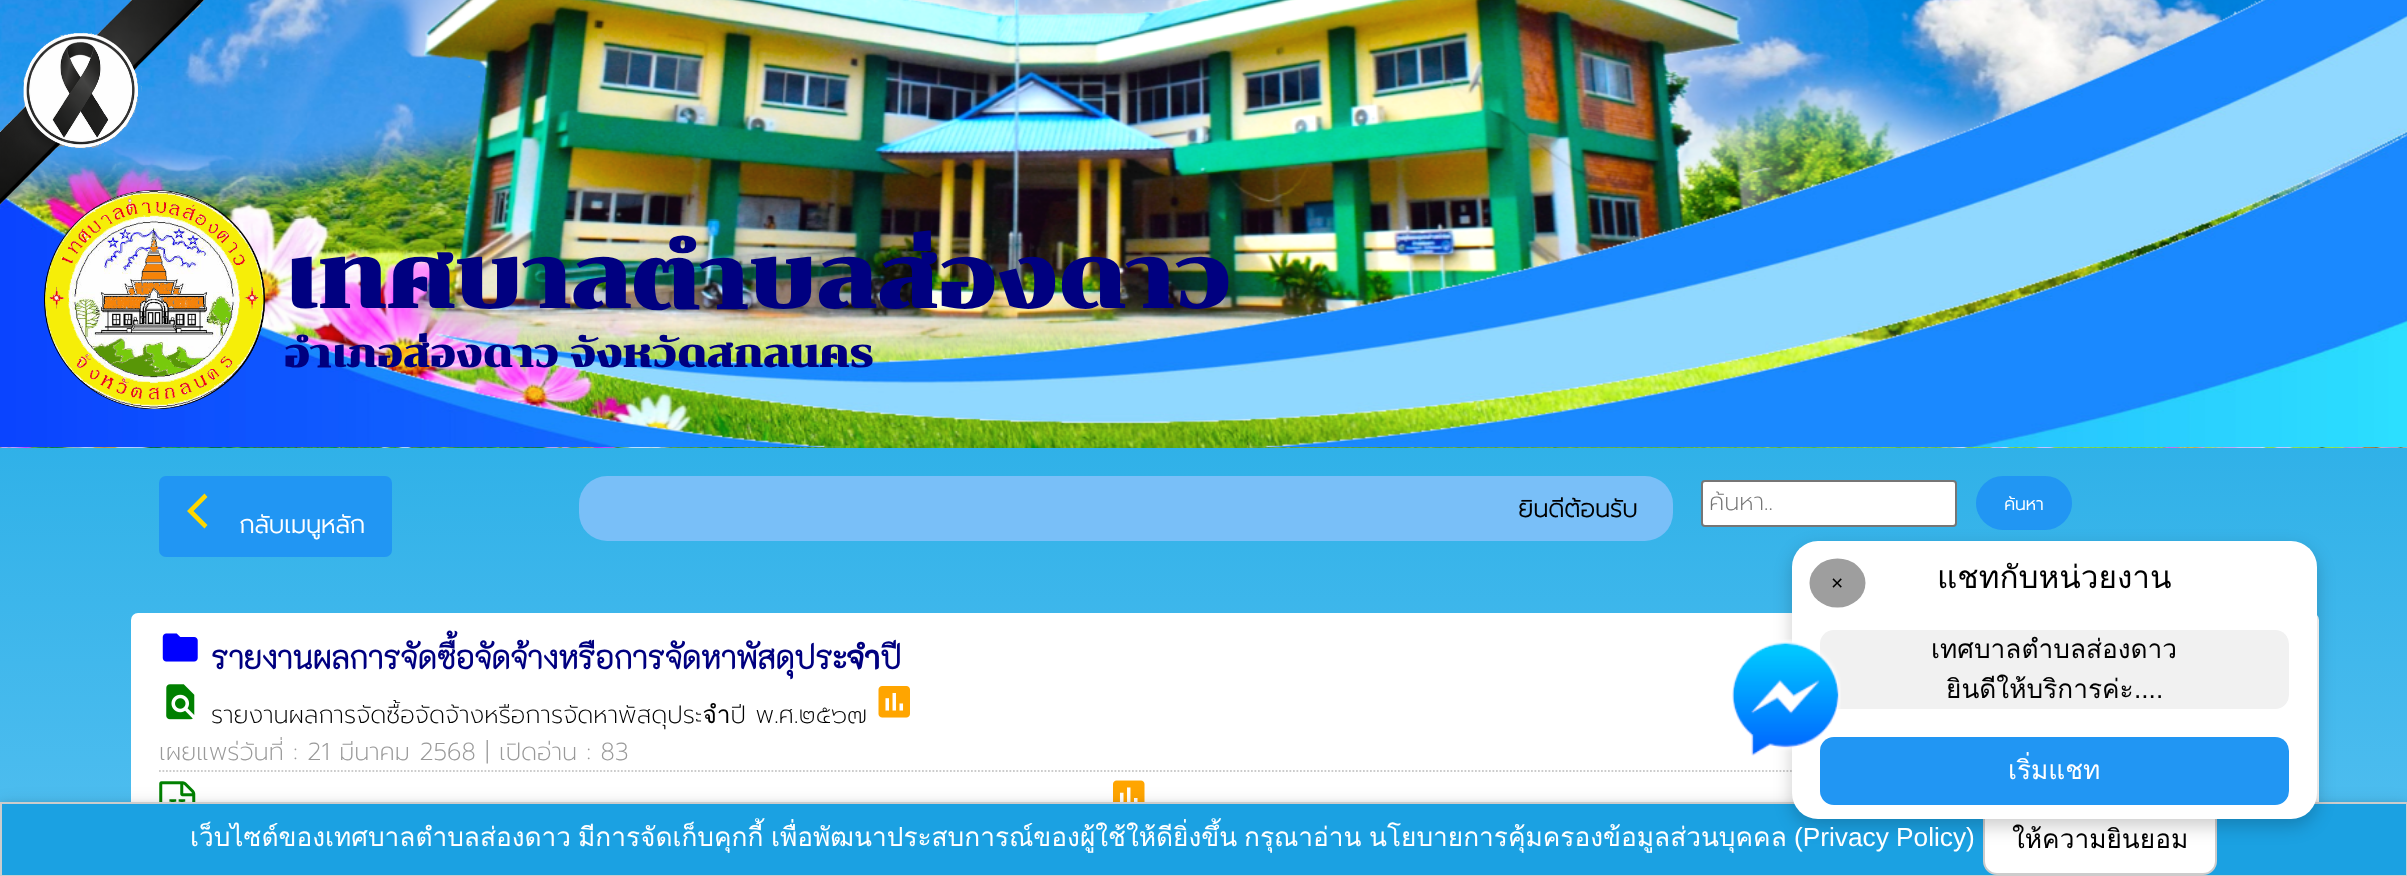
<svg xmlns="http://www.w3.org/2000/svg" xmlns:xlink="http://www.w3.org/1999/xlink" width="2407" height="876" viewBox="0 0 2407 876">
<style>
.cls-1{font:bold 87.5px Chonburi;fill:#000080}
.cls-2{font:bold 38.5px Chonburi;fill:#000080}
.cls-3{font:bold 24.5px Prompt;fill:#000000}
.cls-4{font:200 24.5px Prompt;fill:#757575}
.cls-5{font:bold 17.5px Prompt;fill:#ffffff}
.cls-6{font:bold 24.5px Prompt;fill:#ffffff}
.cls-7{font:bold 31.5px 'K2D';fill:#000080}
.cls-8{font:200 24.5px Prompt;fill:#000000}
.cls-9{font:200 24.5px Prompt;fill:#999999}
.cls-10{font:21px Liberation Sans;fill:#000000}
.cls-11{font:31.5px Loma;fill:#000000}
.cls-12{font:26.25px Loma;fill:#000000}
.cls-13{font:26.25px Liberation Sans;fill:#000000}
.cls-14{font:26.25px Loma;fill:#ffffff}
.cls-15{font:26.25px Liberation Sans;fill:#ffffff}
</style>
<defs>
<linearGradient id="g1" gradientUnits="userSpaceOnUse" x1="1225" y1="448" x2="1225" y2="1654"><stop offset="0" stop-color="#30b1e8"/><stop offset="1" stop-color="#90d8ff"/></linearGradient>
<clipPath id="clip1"><rect x="1708" y="485" width="242" height="37"/></clipPath>
</defs>
<rect width="100%" height="100%" fill="#ffffff"/>
<image xlink:href="image1.png" x="0" y="0" width="2407" height="448"/>
<image xlink:href="image2.png" x="0" y="0" width="2407" height="448"/>
<image xlink:href="image3.png" x="44" y="190" width="221" height="219"/>
<image xlink:href="image0.png" x="0" y="0" width="205" height="209"/>
<rect fill="url(#g1)" x="0" y="448" width="2407" height="354"/>
<rect fill="#79bff8" x="579" y="476" width="1094" height="65" rx="28"/>
<rect fill="#ffffff" stroke="#767676" stroke-width="2" x="1702" y="481" width="254" height="45" rx="3"/>
<rect fill="#2196f3" x="1976" y="476" width="96" height="54" rx="27"/>
<rect fill="#2196f3" x="159" y="476" width="233" height="81" rx="7"/>
<path fill="#ffd700" d="M207.5 497L193.5 511L207.5 525L204.5 528.5L187 511L204.5 493.5Z"/>
<rect fill="#ffffff" x="131" y="613" width="2188" height="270" rx="7"/>
<image xlink:href="image4.png" x="162" y="633" width="36" height="29"/>
<image xlink:href="image5.png" x="166" y="684" width="29" height="36"/>
<image xlink:href="image6.png" x="878" y="686" width="32" height="32"/>
<path fill="none" stroke="#cccccc" stroke-width="1.8" stroke-dasharray="1.75 1.75" d="M159 771H2291"/>
<image xlink:href="image7.png" x="159" y="781" width="37" height="21"/>
<image xlink:href="image8.png" x="1113" y="780" width="32" height="22"/>
<rect fill="#000000" fill-opacity="0.12" filter="blur(9px)" x="0" y="805" width="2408" height="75"/>
<rect fill="#000000" fill-opacity="0.16" filter="blur(4.5px)" x="0" y="805" width="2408" height="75"/>
<rect fill="#1ba1e2" stroke="#cccccc" stroke-width="2" x="1" y="803" width="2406" height="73"/>
<rect fill="#ffffff" stroke="#cccccc" stroke-width="2" x="1984" y="804" width="232" height="70" rx="13"/>
<rect fill="#000000" fill-opacity="0.2" filter="blur(9px)" x="1792" y="548" width="525" height="278" rx="26"/>
<rect fill="#ffffff" x="1792" y="541" width="525" height="278" rx="26"/>
<ellipse fill="#9e9e9e" cx="1837.5" cy="583" rx="28" ry="24.5"/>
<rect fill="#f1f1f1" x="1820" y="630" width="469" height="79" rx="14"/>
<rect fill="#2196f3" x="1820" y="737" width="469" height="68" rx="14"/>
<image xlink:href="image9.png" x="1732" y="639" width="109" height="117"/>
<text class="cls-1" x="284" y="308">เทศบาลตำบลส่องดาว</text>
<text class="cls-2" x="284" y="367">อำเภอส่องดาว จังหวัดสกลนคร</text>
<text class="cls-3" x="1518" y="517">ยินดีต้อนรับ</text>
<g clip-path="url(#clip1)">
<text class="cls-4" x="1709" y="510">ค้นหา..</text>
</g>
<text class="cls-5" x="2004" y="510">ค้นหา</text>
<text class="cls-6" x="239" y="533">กลับเมนูหลัก</text>
<text class="cls-7" x="211" y="669">รายงานผลการจัดซื้อจัดจ้างหรือการจัดหาพัสดุประจำปี</text>
<text class="cls-8" x="211" y="723">รายงานผลการจัดซื้อจัดจ้างหรือการจัดหาพัสดุประจำปี พ.ศ.๒๕๖๗</text>
<text class="cls-9" x="159" y="760">เผยแพร่วันที่ : 21 มีนาคม 2568 | เปิดอ่าน : 83</text>
<text class="cls-10" x="1831" y="590">×</text>
<text class="cls-11" x="1937" y="588">แชทกับหน่วยงาน</text>
<text class="cls-12" x="1931" y="658">เทศบาลตำบลส่องดาว</text>
<text class="cls-12" x="1946" y="698">ยินดีให้บริการค่ะ</text>
<text class="cls-13" x="2134" y="698">....</text>
<text class="cls-14" x="2008" y="779">เริ่มแชท</text>
<text class="cls-14" x="190" y="846">เว็บไซต์ของเทศบาลตำบลส่องดาว</text>
<text class="cls-14" x="578" y="846">มีการจัดเก็บคุกกี้</text>
<text class="cls-14" x="771" y="846">เพื่อพัฒนาประสบการณ์ของผู้ใช้ให้ดียิ่งขึ้น</text>
<text class="cls-14" x="1244" y="846">กรุณาอ่าน</text>
<text class="cls-14" x="1369" y="846">นโยบายการคุ้มครองข้อมูลส่วนบุคคล</text>
<text class="cls-15" x="1794" y="846">(Privacy Policy)</text>
<text class="cls-12" x="2012" y="848">ให้ความยินยอม</text>
</svg>
